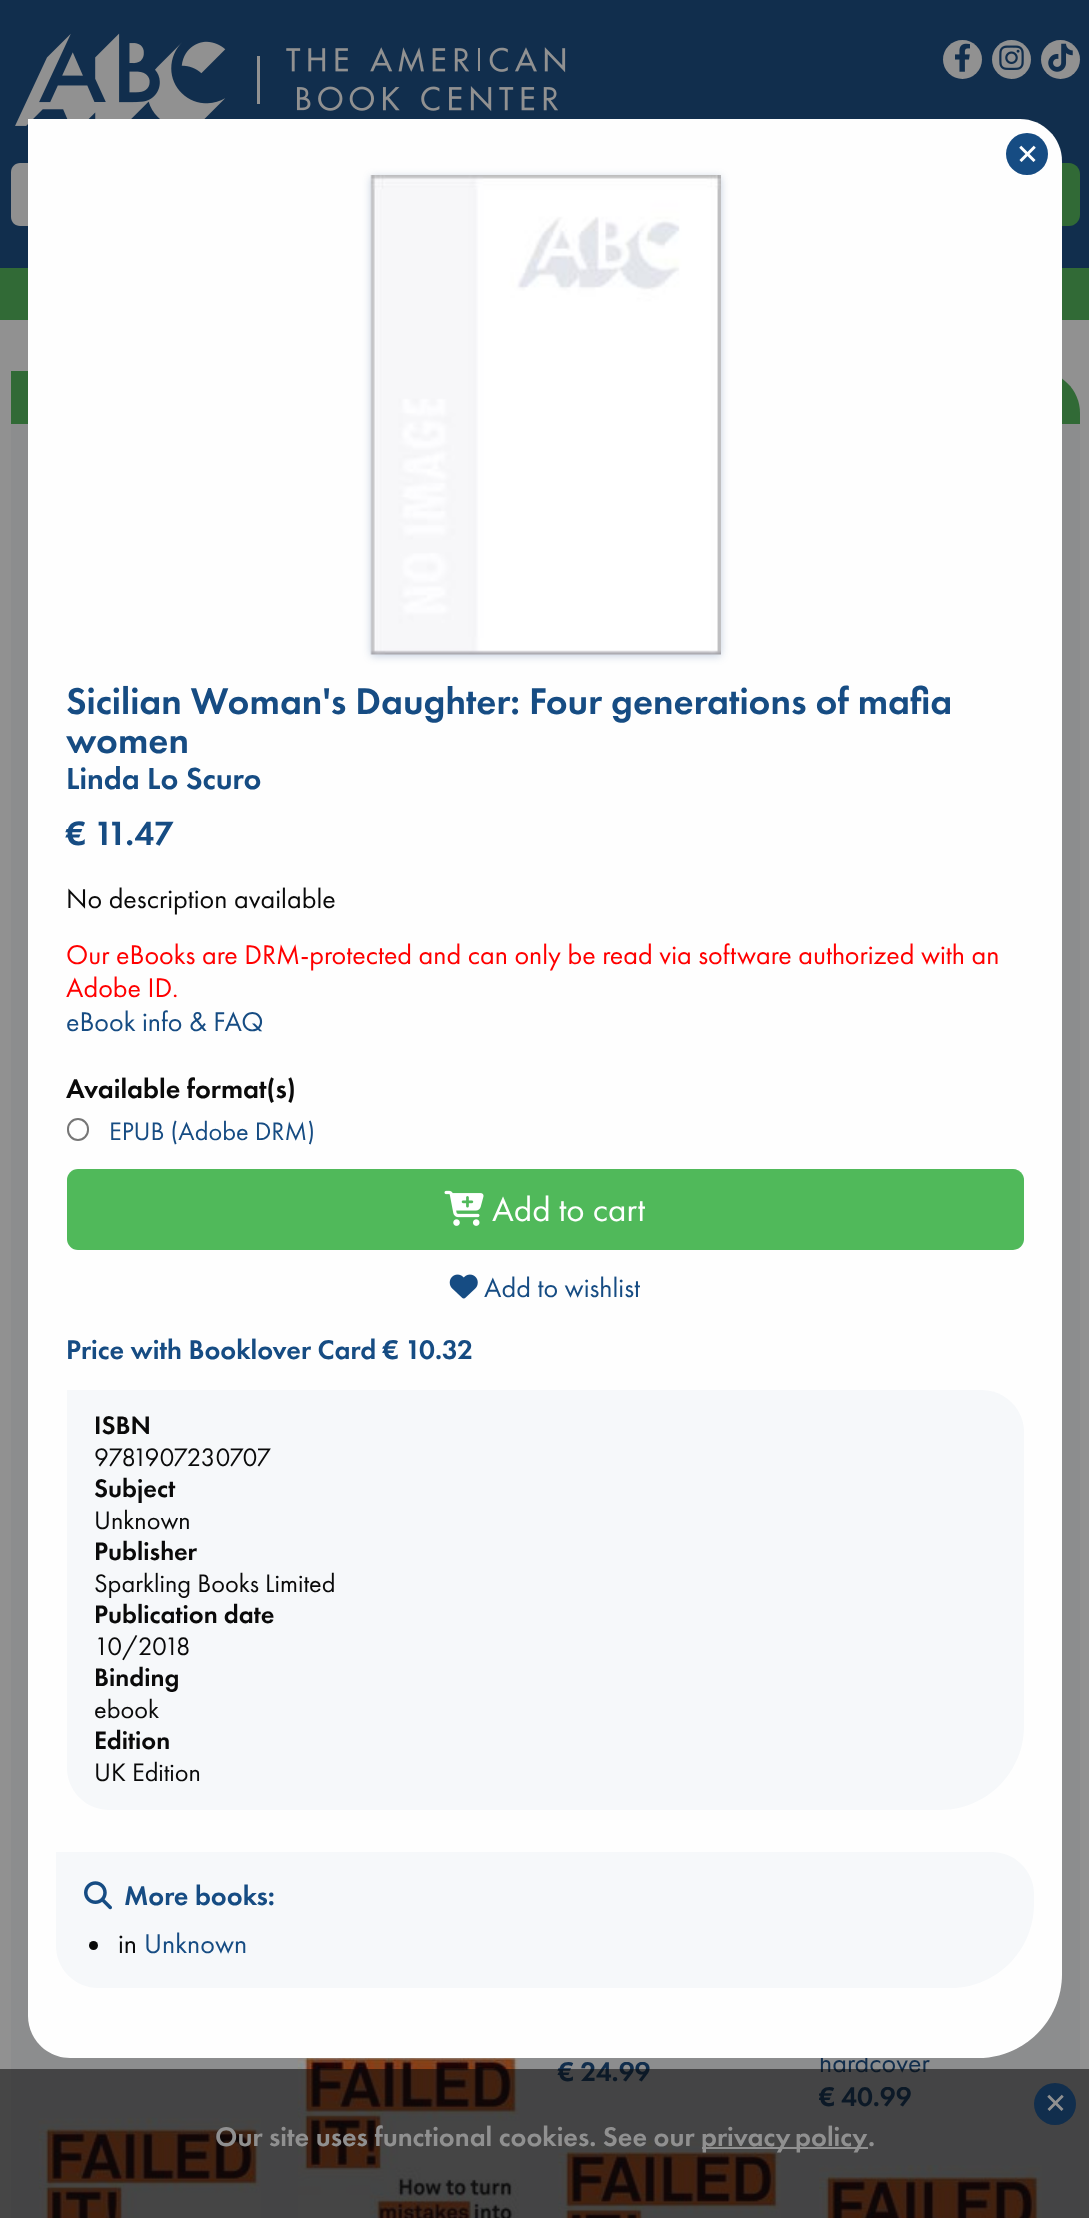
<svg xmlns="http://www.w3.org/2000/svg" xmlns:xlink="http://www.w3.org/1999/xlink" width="1089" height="2218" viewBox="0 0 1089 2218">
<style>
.cls-1{font:500 28px Futura PT;fill:#112e4d}
.cls-2{font:28px Futura PT;fill:#112e4d}
.cls-3{font:42px Futura PT;fill:#ffffff}
.cls-4{font:28px Futura PT;fill:#164c83}
.cls-5{font:28px Futura PT;fill:#0a0a0a}
.cls-6{font:500 28px Futura PT;fill:#164c83}
.cls-7{font:26.25px Futura PT;fill:#0a0a0a}
.cls-8{font:500 26.25px Futura PT;fill:#0a0a0a}
.cls-9{font:35px Futura PT;fill:#ffffff}
.cls-10{font:26.25px Futura PT;fill:#164c83}
.cls-11{font:500 28px Futura PT;fill:#0a0a0a}
.cls-12{font:28px Futura PT;fill:#ff0000}
.cls-13{font:500 35px Futura PT;fill:#164c83}
.cls-14{font:500 31.5px Futura PT;fill:#164c83}
.cls-15{font:500 38.5px Futura PT;fill:#164c83}
.cls-16{font:42px Futura PT;fill:#909090}
.cls-17{font:500 28px Futura PT;fill:#909090}
</style>
<defs>
<clipPath id="clip1"><rect x="819" y="1573" width="261" height="590"/></clipPath>
</defs>
<rect width="100%" height="100%" fill="#919191"/>
<rect fill="#112e4d" x="0" y="0" width="1089" height="268"/>
<image xlink:href="image0.png" x="15" y="33" width="551" height="93"/>
<circle fill="#919191" cx="962.5" cy="59.5" r="19.5"/>
<image xlink:href="image1.png" x="955" y="43" width="15" height="29"/>
<circle fill="#919191" cx="1011.5" cy="59.5" r="19.5"/>
<image xlink:href="image2.png" x="999" y="45" width="25" height="25"/>
<circle fill="#919191" cx="1060.5" cy="59.5" r="19.5"/>
<image xlink:href="image3.png" x="1048" y="43" width="25" height="29"/>
<path fill="#909090" d="M20 163H901V226H20C15 226 11 222 11 217V172C11 167 15 163 20 163Z"/>
<path fill="#316a36" d="M901 163H1069C1075 163 1080 168 1080 174V215C1080 221 1075 226 1069 226H901Z"/>
<rect fill="#316a36" x="0" y="268" width="1089" height="52"/>
<path fill="#316a36" d="M11 371H1038C1061 371 1080 390 1080 413V424H11Z"/>
<rect fill="#8c8d8e" x="11" y="424" width="1069" height="1794"/>
<image xlink:href="image8.png" x="297" y="2058" width="223" height="160"/>
<image xlink:href="image9.png" x="38" y="2117" width="223" height="101"/>
<image xlink:href="image10.png" x="558" y="2140" width="223" height="78"/>
<image xlink:href="image11.png" x="819" y="2165" width="223" height="53"/>
<text class="cls-1" x="558" y="2081">€ 24.99</text>
<text class="cls-2" x="819" y="2072">hardcover</text>
<path fill="#fefefe" d="M28 119H1020C1043 119 1062 138 1062 161V1974C1062 2020.5 1024.5 2058 978 2058H70C47 2058 28 2039 28 2016Z"/>
<circle fill="#164c83" cx="1027" cy="154" r="21"/>
<text class="cls-3" x="1017" y="168">×</text>
<path fill="#f6f8fa" d="M56 1852H992C1015 1852 1034 1871 1034 1894V1904C1034 1950.5 996.5 1988 950 1988H98C75 1988 56 1969 56 1946Z"/>
<text class="cls-4" x="144" y="1953">Unknown</text>
<text class="cls-5" x="118" y="1953">in</text>
<circle fill="#0a0a0a" cx="93.5" cy="1945.5" r="4.5"/>
<text class="cls-6" x="124" y="1905">More books:</text>
<image xlink:href="image7.png" x="84" y="1881" width="28" height="29"/>
<path fill="#f6f8fa" d="M67 1390H982C1005 1390 1024 1409 1024 1432V1726C1024 1772.5 986.5 1810 940 1810H109C86 1810 67 1791 67 1768Z"/>
<text class="cls-7" x="94" y="1781">UK Edition</text>
<text class="cls-8" x="94" y="1749">Edition</text>
<text class="cls-7" x="94" y="1718">ebook</text>
<text class="cls-8" x="94" y="1686">Binding</text>
<text class="cls-7" x="94" y="1655">10/2018</text>
<text class="cls-8" x="94" y="1623">Publication date</text>
<text class="cls-7" x="94" y="1592">Sparkling Books Limited</text>
<text class="cls-8" x="94" y="1560">Publisher</text>
<text class="cls-7" x="94" y="1529">Unknown</text>
<text class="cls-8" x="94" y="1497">Subject</text>
<text class="cls-7" x="94" y="1466">9781907230707</text>
<text class="cls-8" x="94" y="1434">ISBN</text>
<text class="cls-6" x="66" y="1359">Price with Booklover Card € 10.32</text>
<text class="cls-4" x="484" y="1297">Add to wishlist</text>
<image xlink:href="image6.png" x="449" y="1274" width="29" height="25"/>
<rect fill="#50b95a" x="67" y="1169" width="957" height="81" rx="11"/>
<text class="cls-9" x="492" y="1221">Add to cart</text>
<image xlink:href="image5.png" x="444" y="1190" width="40" height="36"/>
<text class="cls-10" x="109" y="1140">EPUB (Adobe DRM)</text>
<rect fill="none" stroke="#767676" stroke-width="2" x="68" y="1119" width="20" height="21" rx="10"/>
<text class="cls-11" x="66" y="1098">Available format(s)</text>
<text class="cls-4" x="66" y="1031">eBook info &amp; FAQ</text>
<text class="cls-12" x="66" y="997">Adobe ID.</text>
<text class="cls-12" x="66" y="964">Our eBooks are DRM-protected and can only be read via software authorized with an</text>
<text class="cls-5" x="66" y="908">No description available</text>
<text class="cls-13" x="66" y="845">€ 11.47</text>
<text class="cls-14" x="66" y="789">Linda Lo Scuro</text>
<text class="cls-15" x="66" y="753">women</text>
<text class="cls-15" x="66" y="714">Sicilian Woman's Daughter: Four generations of mafia</text>
<rect fill="#164383" fill-opacity="0.25" filter="blur(4.5px)" x="371" y="177" width="350" height="479"/>
<image xlink:href="image4.png" x="370" y="175" width="351" height="480"/>
<g clip-path="url(#clip1)">
<text class="cls-1" x="819" y="2106">€</text>
</g>
<text class="cls-1" x="841" y="2106">40.99</text>
<rect fill="#0a0a0a" fill-opacity="0.55" x="0" y="2069" width="1089" height="149"/>
<circle fill="#112e4d" cx="1055" cy="2104" r="21"/>
<text class="cls-16" x="1045" y="2117">×</text>
<text class="cls-17" x="215" y="2146">Our site uses functional cookies. See our</text>
<rect fill="#909090" x="702" y="2147" width="166" height="2"/>
<text class="cls-17" x="701" y="2146" word-spacing="-2">privacy policy</text>
<text class="cls-17" x="868" y="2146">.</text>
</svg>
